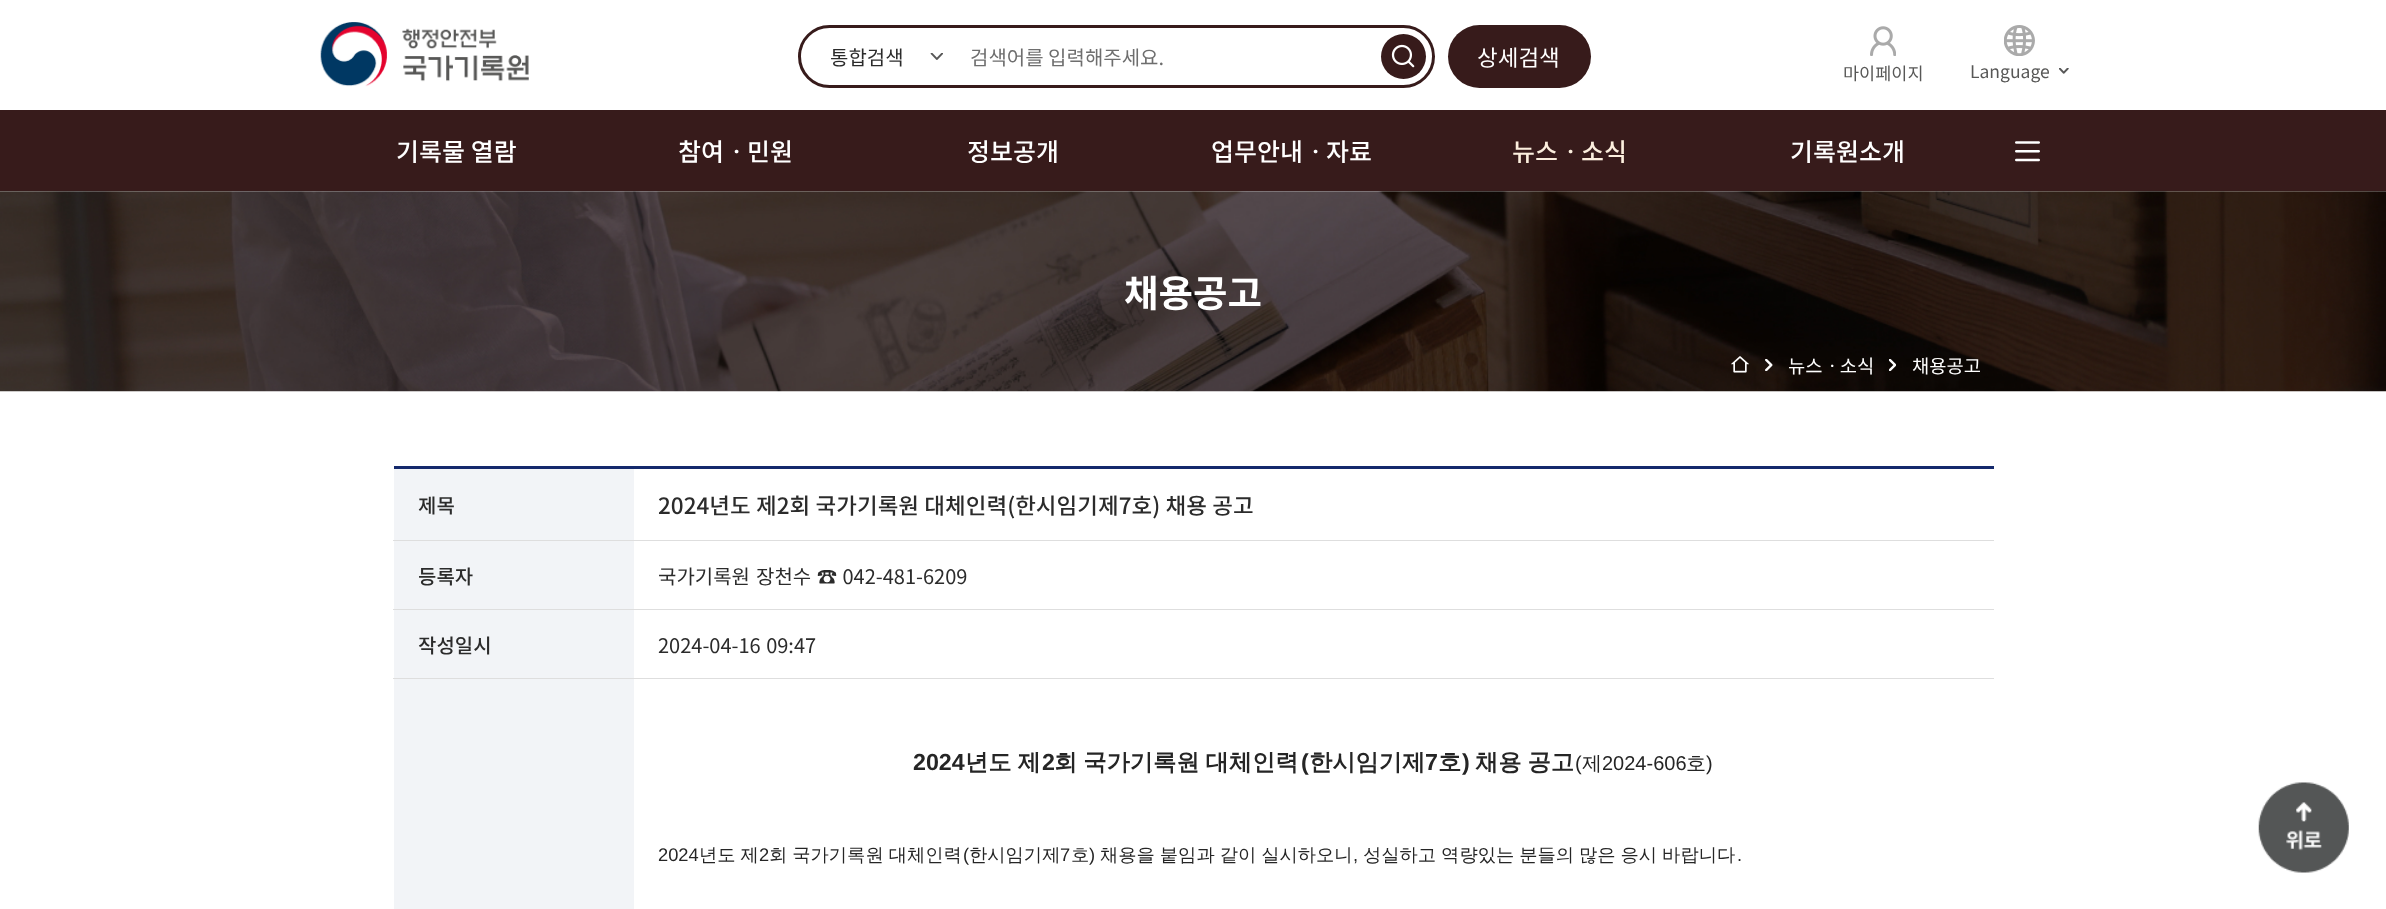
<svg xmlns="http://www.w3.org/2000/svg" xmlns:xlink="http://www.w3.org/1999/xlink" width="2386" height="909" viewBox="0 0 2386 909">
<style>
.cls-1{font:20px Noto Sans KR;fill:#2b2b2b}
.cls-2{font:20px Noto Sans KR;fill:#6e6e6e}
.cls-3{font:22.5px Noto Sans KR;fill:#ffffff}
.cls-4{font:17.5px Noto Sans KR;fill:#575756}
.cls-5{font:500 25px Noto Sans KR;fill:#ffffff}
.cls-6{font:500 25px Noto Sans KR;fill:#fcefde}
.cls-7{font:bold 37.5px Noto Sans KR;fill:#ffffff}
.cls-8{font:18.75px Noto Sans KR;fill:#ffffff}
.cls-9{font:500 20px Noto Sans KR;fill:#2b2b2b}
.cls-10{font:500 22.5px Noto Sans KR;fill:#2b2b2b}
.cls-11{font:bold 23.25px Liberation Sans;fill:#252525}
.cls-12{font:bold 23.25px WenQuanYi Zen Hei;fill:#252525}
.cls-13{font:20px Liberation Sans;fill:#252525}
.cls-14{font:500 20px WenQuanYi Zen Hei;fill:#252525}
.cls-15{font:18.3px Liberation Sans;fill:#252525}
.cls-16{font:500 18.3px WenQuanYi Zen Hei;fill:#252525}
</style>
<rect width="100%" height="100%" fill="#ffffff"/>
<image xlink:href="image0.png" x="320" y="22" width="209" height="65"/>
<rect fill="none" stroke="#371b1b" stroke-width="3" x="799.5" y="26.5" width="634" height="60" rx="30"/>
<image xlink:href="image1.png" x="930" y="53" width="13" height="7"/>
<circle fill="#371b1b" cx="1403.5" cy="56.5" r="22.5"/>
<image xlink:href="image2.png" x="1391" y="44" width="24" height="24"/>
<rect fill="#371b1b" x="1448" y="25" width="143" height="63" rx="31.5"/>
<image xlink:href="image3.png" x="1870" y="26" width="26" height="30"/>
<image xlink:href="image4.png" x="2004" y="25" width="31" height="31"/>
<image xlink:href="image5.png" x="2059" y="68" width="10" height="6"/>
<rect fill="#371b1b" x="0" y="110" width="2386" height="81"/>
<image xlink:href="image6.png" x="2015" y="141" width="25" height="21"/>
<image xlink:href="image7.png" x="0" y="191" width="2386" height="201"/>
<image xlink:href="image8.png" x="1731" y="356" width="18" height="17"/>
<image xlink:href="image9.png" x="1765" y="359" width="8" height="12"/>
<image xlink:href="image10.png" x="1889" y="359" width="7" height="12"/>
<rect fill="#14296c" x="394" y="466" width="1600" height="3"/>
<rect fill="#f2f4f7" x="394" y="469" width="240" height="71"/>
<rect fill="#dedede" x="393" y="540" width="1601" height="1"/>
<rect fill="#f2f4f7" x="394" y="541" width="240" height="68"/>
<rect fill="#dedede" x="393" y="609" width="1601" height="1"/>
<rect fill="#f2f4f7" x="394" y="610" width="240" height="68"/>
<rect fill="#dedede" x="393" y="678" width="1601" height="1"/>
<rect fill="#f2f4f7" x="394" y="679" width="240" height="230"/>
<image xlink:href="image11.png" x="2258" y="782" width="91" height="91"/>
<text class="cls-1" x="830" y="65">통합검색</text>
<text class="cls-2" x="970" y="65">검색어를 입력해주세요.</text>
<text class="cls-3" x="1477" y="66">상세검색</text>
<text class="cls-4" x="1843" y="80">마이페이지</text>
<text class="cls-4" x="1970" y="78">Language</text>
<text class="cls-5" x="396" y="161">기록물 열람</text>
<text class="cls-5" x="678" y="161">참여ㆍ민원</text>
<text class="cls-5" x="967" y="161">정보공개</text>
<text class="cls-5" x="1211" y="161">업무안내ㆍ자료</text>
<text class="cls-6" x="1512" y="161">뉴스ㆍ소식</text>
<text class="cls-5" x="1790" y="161">기록원소개</text>
<text class="cls-7" x="1124" y="307">채용공고</text>
<text class="cls-8" x="1788" y="373">뉴스ㆍ소식</text>
<text class="cls-8" x="1912" y="373">채용공고</text>
<text class="cls-9" x="418" y="513">제목</text>
<text class="cls-10" x="658" y="514" word-spacing="0.25">2024년도 제2회 국가기록원 대체인력(한시임기제7호) 채용 공고</text>
<text class="cls-9" x="418" y="584">등록자</text>
<text class="cls-1" x="658" y="584">국가기록원</text>
<text class="cls-1" x="756" y="584">장천수</text>
<text class="cls-1" x="817" y="584" word-spacing="1">☎ 042-481-6209</text>
<text class="cls-9" x="418" y="653">작성일시</text>
<text class="cls-1" x="658" y="653" word-spacing="1">2024-04-16 09:47</text>
<text class="cls-11" x="913" y="770">2024</text>
<text class="cls-12" x="965" y="770" word-spacing="-1">년도 제</text>
<text class="cls-11" x="1042" y="770">2</text>
<text class="cls-12" x="1054" y="770" word-spacing="-1">회 국가기록원 대체인력</text>
<text class="cls-11" x="1301" y="770">(</text>
<text class="cls-12" x="1309" y="770">한시임기제</text>
<text class="cls-11" x="1425" y="770">7</text>
<text class="cls-12" x="1438" y="770">호</text>
<text class="cls-11" x="1462" y="770">)</text>
<text class="cls-12" x="1475" y="770" word-spacing="-1">채용 공고</text>
<text class="cls-13" x="1575" y="770">(</text>
<text class="cls-14" x="1582" y="770">제</text>
<text class="cls-13" x="1602" y="770">2024-606</text>
<text class="cls-14" x="1686" y="770">호</text>
<text class="cls-13" x="1706" y="770">)</text>
<text class="cls-15" x="658" y="861">2024</text>
<text class="cls-16" x="699" y="861" word-spacing="-0.5">년도 제</text>
<text class="cls-15" x="759" y="861">2</text>
<text class="cls-16" x="769" y="861" word-spacing="-0.5">회 국가기록원 대체인력</text>
<text class="cls-15" x="963" y="861">(</text>
<text class="cls-16" x="969" y="861">한시임기제</text>
<text class="cls-15" x="1060" y="861">7</text>
<text class="cls-16" x="1071" y="861">호</text>
<text class="cls-15" x="1089" y="861">)</text>
<text class="cls-16" x="1100" y="861" word-spacing="-0.5">채용을 붙임과 같이 실시하오니</text>
<text class="cls-15" x="1353" y="861">,</text>
<text class="cls-16" x="1363" y="861" word-spacing="-0.5">성실하고 역량있는 분들의 많은 응시 바랍니다</text>
<text class="cls-15" x="1737" y="861">.</text>
</svg>
